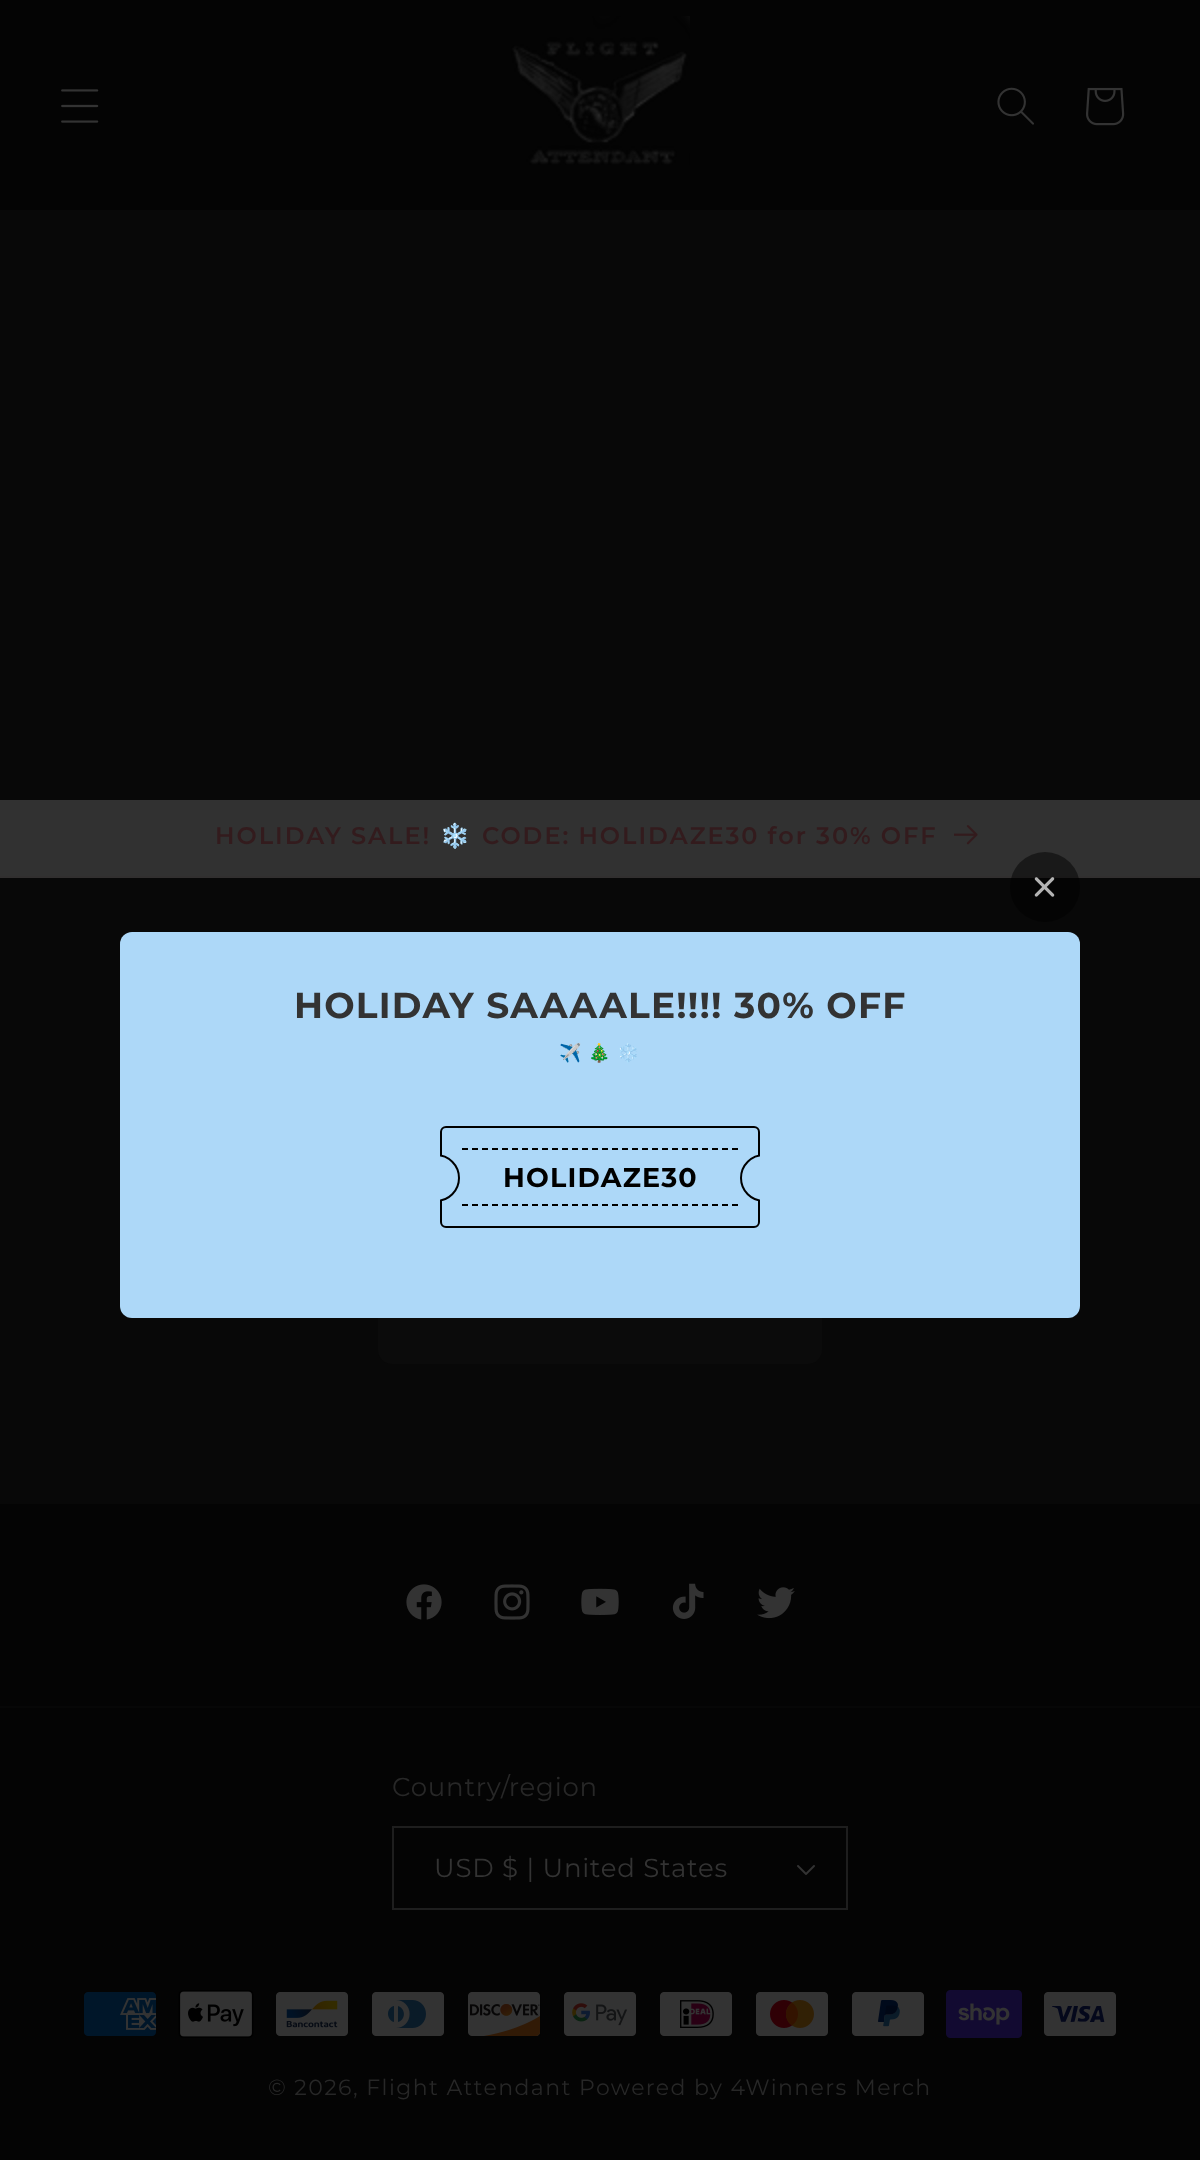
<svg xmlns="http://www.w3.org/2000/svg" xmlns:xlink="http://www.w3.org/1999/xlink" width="1200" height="2160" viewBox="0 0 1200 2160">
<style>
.cls-1{font:600 24px Montserrat;letter-spacing:2px;fill:#331b1d}
.cls-2{font:bold 24px Noto Color Emoji;letter-spacing:2px;fill:#331b1d}
.cls-3{font:bold 36px Montserrat;letter-spacing:1.2px;fill:#333333}
.cls-4{font:18px Noto Color Emoji;letter-spacing:1.2px;fill:#424242}
.cls-5{font:bold 27px Montserrat;letter-spacing:1.2px;fill:#000000}
.cls-6{font:26px Montserrat;letter-spacing:0.8px;fill:#272727}
.cls-7{font:26px Montserrat;letter-spacing:0.8px;fill:#333333}
.cls-8{font:22px Montserrat;letter-spacing:1.4px;fill:#272727}
</style>
<rect width="100%" height="100%" fill="#080808"/>
<rect fill="#040404" x="0" y="0" width="1200" height="210"/>
<image xlink:href="image0.png" x="61" y="89" width="38" height="34"/>
<image xlink:href="image1.png" x="511" y="16" width="179" height="149"/>
<image xlink:href="image2.png" x="997" y="87" width="37" height="38"/>
<image xlink:href="image3.png" x="1086" y="87" width="39" height="39"/>
<rect fill="#313131" x="0" y="800" width="1200" height="76"/>
<rect fill="#312f2f" x="0" y="876" width="1200" height="2"/>
<image xlink:href="image4.png" x="954" y="825" width="24" height="20"/>
<circle fill="#000000" fill-opacity="0.49" cx="1045" cy="887" r="35"/>
<image xlink:href="image5.png" x="1034" y="877" width="21" height="20"/>
<rect fill="#0b0b0b" x="378" y="1270" width="444" height="94" rx="14"/>
<rect fill="#add8f8" x="120" y="932" width="960" height="386" rx="12"/>
<rect fill="none" stroke="#000000" stroke-width="2" x="441" y="1127" width="318" height="100" rx="5"/>
<circle fill="#add8f8" stroke="#000000" stroke-width="2" cx="436" cy="1178" r="23"/>
<rect fill="#add8f8" x="412" y="1154" width="28" height="48"/>
<path fill="none" stroke="#000000" stroke-width="2" stroke-dasharray="6 4" d="M462 1149H738"/>
<path fill="none" stroke="#000000" stroke-width="2" stroke-dasharray="6 4" d="M462 1205H738"/>
<circle fill="#add8f8" stroke="#000000" stroke-width="2" cx="764" cy="1178" r="23"/>
<rect fill="#add8f8" x="760" y="1154" width="28" height="48"/>
<rect fill="#040404" x="0" y="1504" width="1200" height="656"/>
<image xlink:href="image6.png" x="406" y="1584" width="36" height="36"/>
<image xlink:href="image7.png" x="494" y="1584" width="36" height="36"/>
<image xlink:href="image8.png" x="581" y="1588" width="38" height="27"/>
<image xlink:href="image9.png" x="672" y="1583" width="32" height="36"/>
<image xlink:href="image10.png" x="757" y="1587" width="38" height="32"/>
<rect fill="#070707" x="0" y="1706" width="1200" height="2"/>
<image xlink:href="image11.png" x="797" y="1865" width="18" height="10"/>
<rect fill="none" stroke="#1e1e1e" stroke-width="2" x="393" y="1827" width="454" height="82"/>
<image xlink:href="image12.png" x="84" y="1992" width="72" height="44"/>
<image xlink:href="image13.png" x="178" y="1990" width="76" height="48"/>
<image xlink:href="image14.png" x="276" y="1992" width="72" height="44"/>
<image xlink:href="image15.png" x="372" y="1992" width="72" height="44"/>
<image xlink:href="image16.png" x="468" y="1992" width="73" height="44"/>
<image xlink:href="image17.png" x="564" y="1992" width="72" height="44"/>
<image xlink:href="image18.png" x="660" y="1992" width="72" height="44"/>
<image xlink:href="image19.png" x="756" y="1992" width="72" height="44"/>
<image xlink:href="image20.png" x="852" y="1992" width="72" height="44"/>
<image xlink:href="image21.png" x="946" y="1990" width="76" height="48"/>
<image xlink:href="image22.png" x="1044" y="1992" width="72" height="44"/>
<text class="cls-1" x="215" y="844" word-spacing="-0.5">HOLIDAY SALE!</text>
<text class="cls-2" x="440" y="844">❄️</text>
<text class="cls-1" x="482" y="844" word-spacing="-0.5">CODE: HOLIDAZE30 for 30% OFF</text>
<text class="cls-3" x="294" y="1018">HOLIDAY SAAAALE!!!! 30% OFF</text>
<text class="cls-4" x="559" y="1059">✈️</text>
<text class="cls-4" x="588" y="1059">🎄</text>
<text class="cls-4" x="617" y="1059">❄️</text>
<text class="cls-5" x="503" y="1187">HOLIDAZE30</text>
<text class="cls-6" x="392" y="1796">Country/region</text>
<text class="cls-7" x="434" y="1877">USD $ | United States</text>
<text class="cls-8" x="268" y="2095">© 2026, Flight Attendant</text>
<text class="cls-8" x="579" y="2095">Powered by 4Winners Merch</text>
</svg>
